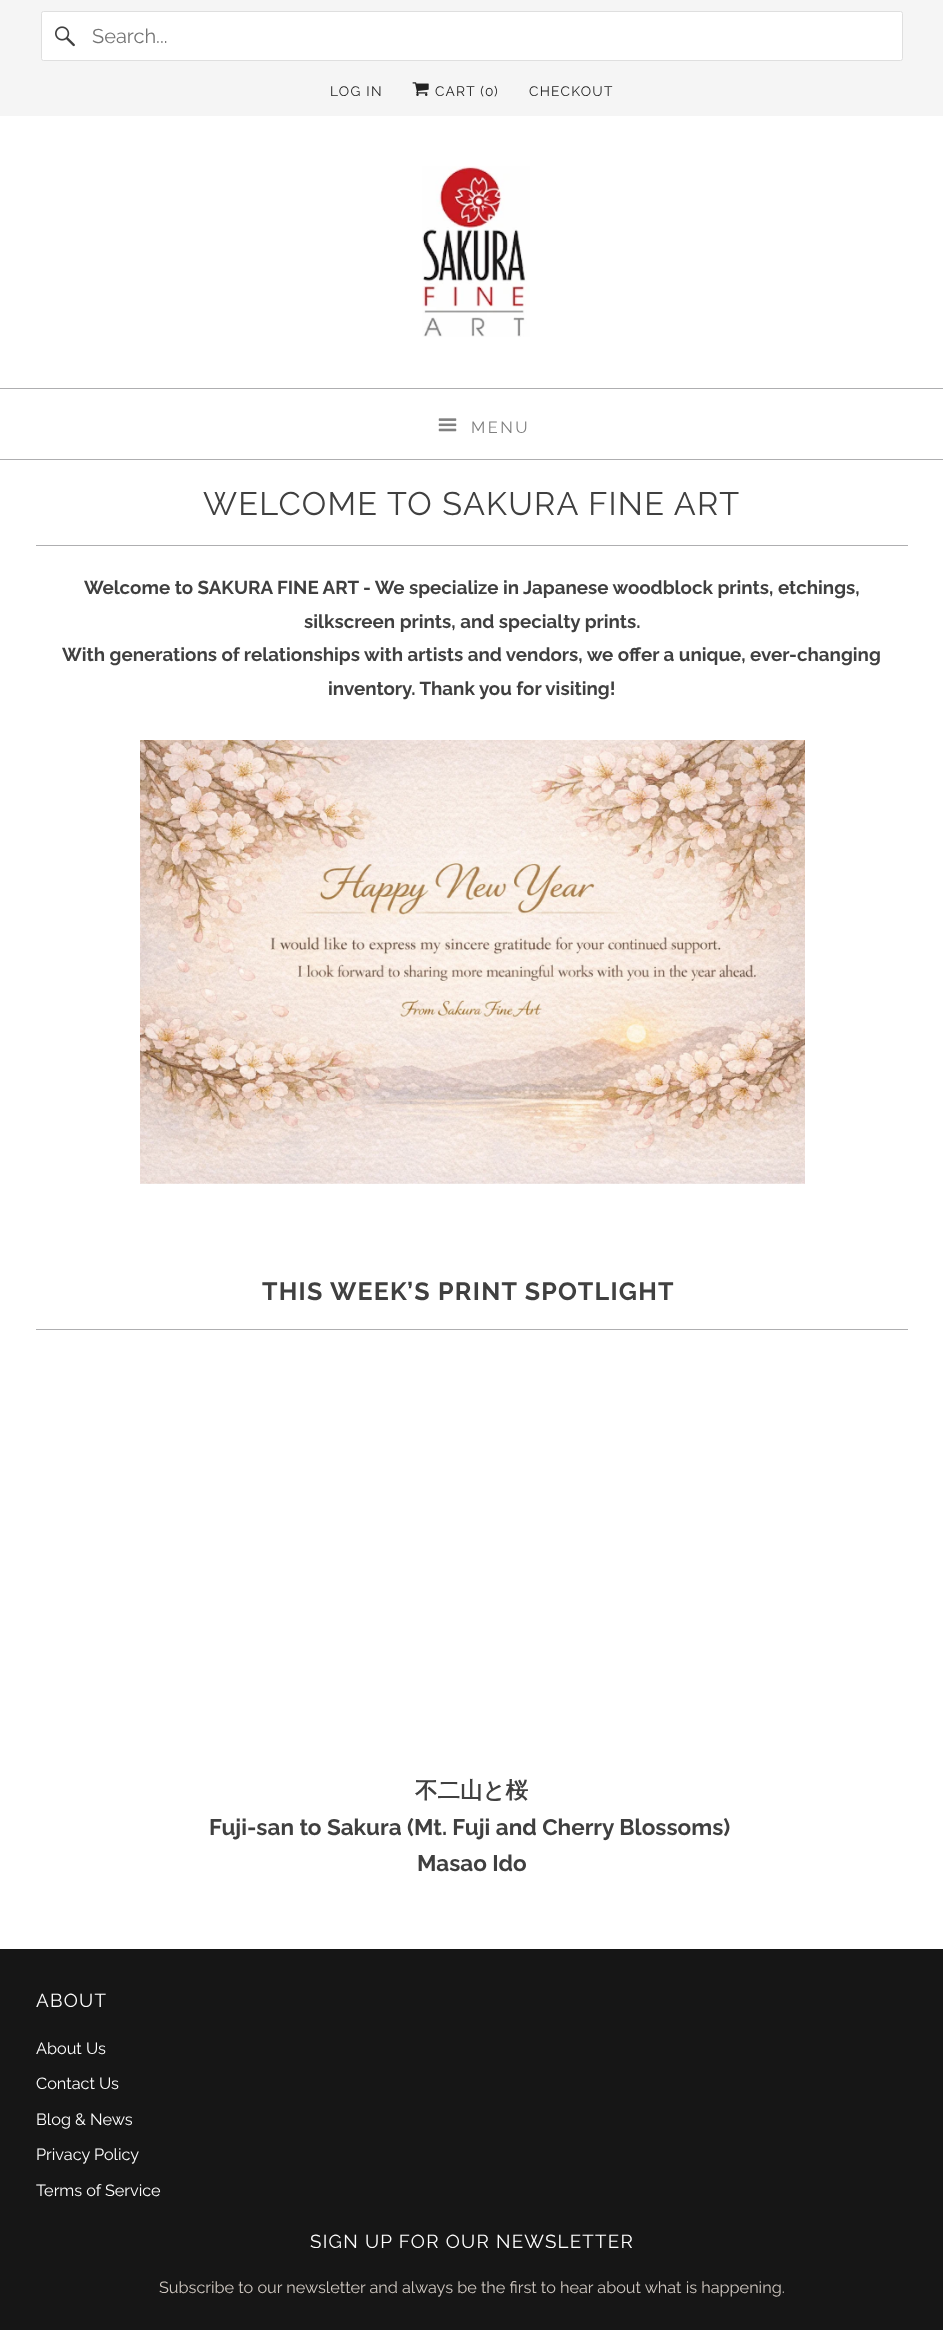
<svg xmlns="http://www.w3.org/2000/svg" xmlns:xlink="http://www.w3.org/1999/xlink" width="943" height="2330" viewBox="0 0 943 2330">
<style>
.cls-1{font:20px Raleway;fill:#757575}
.cls-2{font:13.75px Raleway;letter-spacing:1.25px;fill:#222222}
.cls-3{font:16.25px Raleway;letter-spacing:2.5px;fill:#808080}
.cls-4{font:32.5px Raleway;letter-spacing:1.25px;fill:#404040}
.cls-5{font:bold 18.75px Raleway;fill:#404040}
.cls-6{font:bold 25px Raleway;letter-spacing:1.25px;fill:#404040}
.cls-7{font:bold 22.5px WenQuanYi Zen Hei;fill:#404040}
.cls-8{font:bold 22.5px Raleway;fill:#404040}
.cls-9{font:18.75px Raleway;letter-spacing:1.25px;fill:#ffffff}
.cls-10{font:16.25px Raleway;fill:#ffffff}
.cls-11{font:16.25px Raleway;fill:#cec6bf}
</style>
<rect width="100%" height="100%" fill="#ffffff"/>
<rect fill="#f5f5f5" x="0" y="0" width="943" height="116"/>
<rect fill="#ffffff" stroke="#dfdfdf" x="41.5" y="11.5" width="861" height="49" rx="2"/>
<image xlink:href="image0.png" x="55" y="26" width="20" height="21"/>
<image xlink:href="image1.png" x="412" y="82" width="17" height="14"/>
<image xlink:href="image2.png" x="422" y="166" width="108" height="171"/>
<rect fill="#aeaeb0" x="0" y="388" width="943" height="1"/>
<rect fill="#aeaeb0" x="0" y="459" width="943" height="1"/>
<image xlink:href="image3.png" x="438" y="418" width="19" height="14"/>
<rect fill="#aeaeb0" x="36" y="545" width="872" height="1"/>
<image xlink:href="image4.png" x="140" y="740" width="665" height="444"/>
<rect fill="#aeaeb0" x="36" y="1329" width="872" height="1"/>
<rect fill="#161616" x="0" y="1949" width="943" height="381"/>
<text class="cls-1" x="92" y="43">Search...</text>
<text class="cls-2" x="330" y="96">LOG IN</text>
<text class="cls-2" x="435" y="96">CART (0</text>
<text class="cls-2" x="494" y="96">)</text>
<text class="cls-2" x="529" y="96">CHECKOUT</text>
<text class="cls-3" x="471" y="433">MENU</text>
<text class="cls-4" x="203" y="515">WELCOME TO SAKURA FINE ART</text>
<text class="cls-5" x="84" y="594">Welcome to SAKURA FINE ART - We specialize in Japanese woodblock prints, etchings,</text>
<text class="cls-5" x="304" y="628">silkscreen prints, and specialty prints.</text>
<text class="cls-5" x="62" y="661">With generations of relationships with artists and vendors, we offer a unique, ever-changing</text>
<text class="cls-5" x="328" y="695">inventory. Thank you for visiting!</text>
<text class="cls-6" x="262" y="1300">THIS WEEK’S PRINT SPOTLIGHT</text>
<text class="cls-7" x="415" y="1798">不二山と桜</text>
<text class="cls-8" x="209" y="1835">Fuji-san to Sakura (Mt. Fuji and Cherry Blossoms)</text>
<text class="cls-8" x="417" y="1871">Masao Ido</text>
<text class="cls-9" x="36" y="2007">ABOUT</text>
<text class="cls-10" x="36" y="2054">About Us</text>
<text class="cls-10" x="36" y="2089">Contact Us</text>
<text class="cls-10" x="36" y="2125">Blog &amp; News</text>
<text class="cls-10" x="36" y="2160">Privacy Policy</text>
<text class="cls-10" x="36" y="2196">Terms of Service</text>
<text class="cls-9" x="310" y="2248">SIGN UP FOR OUR NEWSLETTER</text>
<text class="cls-11" x="159" y="2293">Subscribe to our newsletter and always be the first to hear about what is happening.</text>
</svg>
